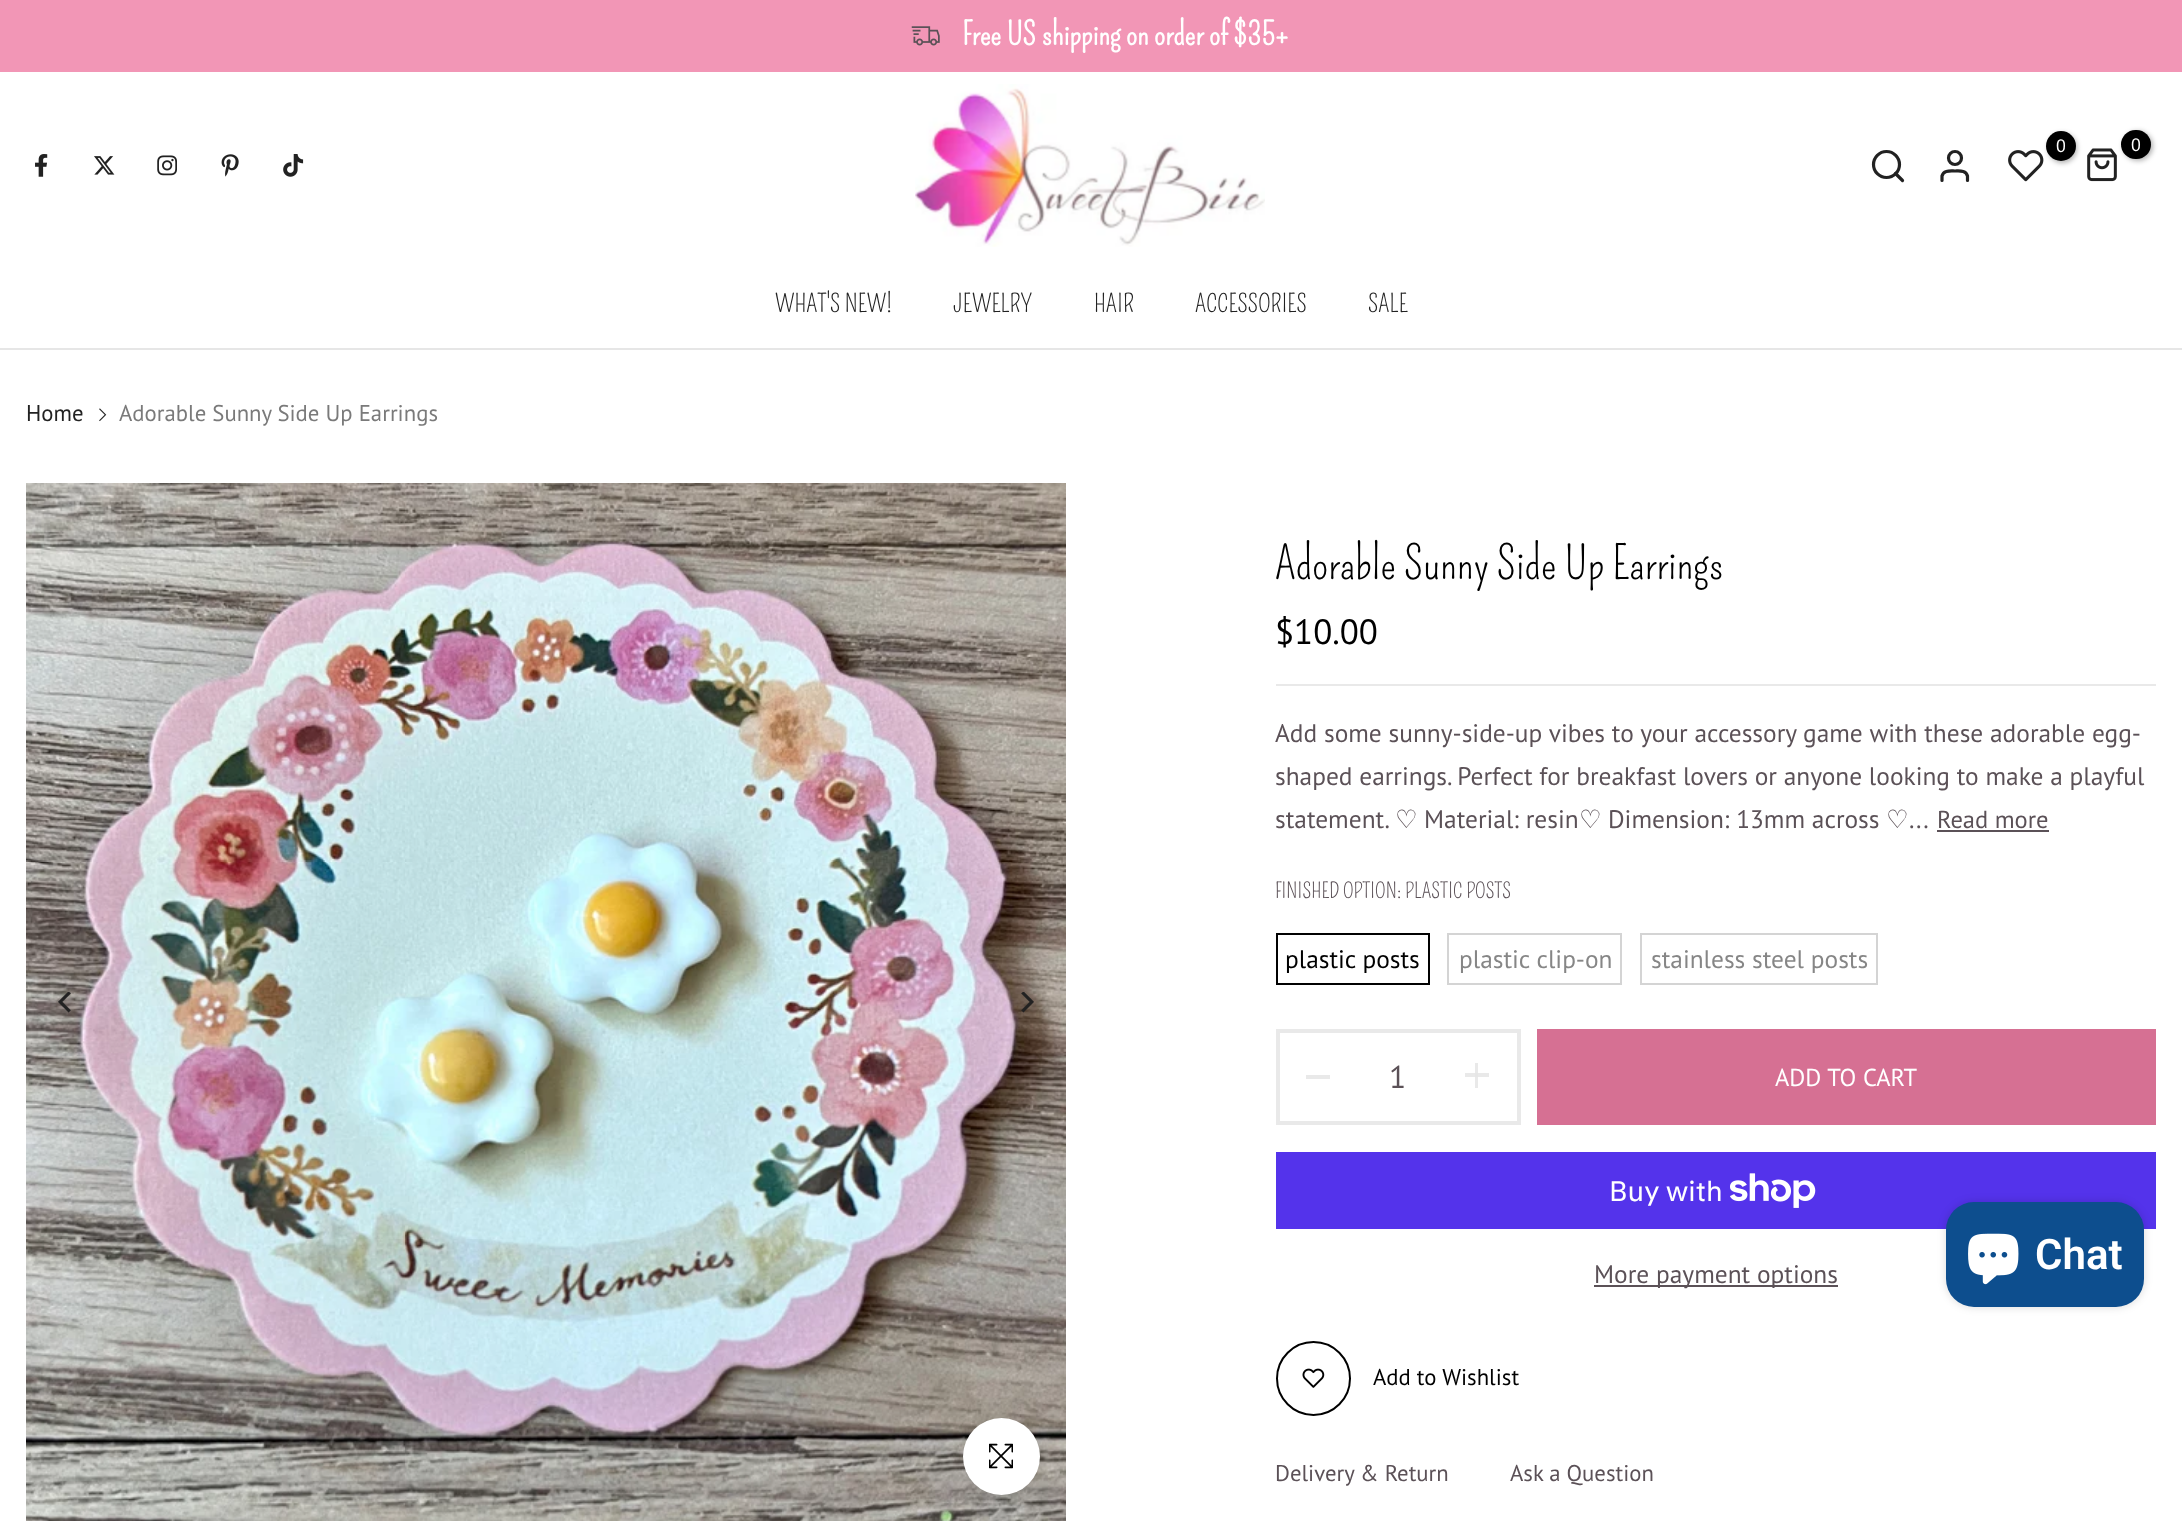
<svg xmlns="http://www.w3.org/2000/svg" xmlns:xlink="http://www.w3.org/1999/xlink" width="2182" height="1525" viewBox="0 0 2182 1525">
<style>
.cls-1{font:bold 31.5px Pompiere;fill:#ffffff}
.cls-2{font:18px PT Sans;fill:#ffffff}
.cls-3{font:24.5px Pompiere;fill:#222222}
.cls-4{font:22.75px PT Sans;fill:#222222}
.cls-5{font:22.75px PT Sans;fill:#7a7a7a}
.cls-6{font:45.5px Pompiere;fill:#000000}
.cls-7{font:35px PT Sans;fill:#000000}
.cls-8{font:25.4px PT Sans;fill:#5b5157}
.cls-9{font:25.4px DejaVu Sans;fill:#5b5157}
.cls-10{font:24.5px PT Sans;fill:#5b5157}
.cls-11{font:21px Pompiere;fill:#5b5157}
.cls-12{font:25.4px PT Sans;fill:#000000}
.cls-13{font:25.4px PT Sans;fill:#868686}
.cls-14{font:31.5px PT Sans;fill:#5b5157}
.cls-15{font:24.5px PT Sans;fill:#ffffff}
.cls-16{font:28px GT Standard;fill:#ffffff}
.cls-17{font:22.75px PT Sans;fill:#000000}
.cls-18{font:22.75px PT Sans;fill:#5b5157}
.cls-19{font:600 42px Roboto;fill:#ffffff}
</style>
<rect width="100%" height="100%" fill="#ffffff"/>
<rect fill="#e9e9e9" x="1475" y="1063" width="3" height="25"/>
<rect fill="#f296b6" x="0" y="0" width="2182" height="72"/>
<image xlink:href="image0.png" x="911" y="26" width="29" height="20"/>
<image xlink:href="image1.png" x="915" y="84" width="350" height="163"/>
<image xlink:href="image2.png" x="2008" y="150" width="36" height="32"/>
<rect fill="#000000" fill-opacity="0.3" filter="blur(2.5px)" x="2048" y="133" width="29" height="30" rx="14.5"/>
<circle fill="#000000" cx="2061" cy="146" r="15"/>
<image xlink:href="image3.png" x="2087" y="148" width="30" height="34"/>
<rect fill="#000000" fill-opacity="0.3" filter="blur(2.5px)" x="2123" y="131" width="30" height="30" rx="15"/>
<rect fill="#000000" x="2121" y="130" width="30" height="29" rx="14.5"/>
<circle fill="none" stroke="#222222" stroke-width="3.2" cx="1886.5" cy="164.5" r="13"/>
<path fill="none" stroke="#222222" stroke-width="3.2" stroke-linecap="round" stroke-linejoin="round" d="M1902.5 180.5L1895.5 173.5"/>
<circle fill="none" stroke="#222222" stroke-width="3.2" cx="1955" cy="158" r="6.5"/>
<path fill="none" stroke="#222222" stroke-width="3.2" stroke-linecap="round" stroke-linejoin="round" d="M1967.5 180.5V176C1966 170 1959.5 171 1955 171C1950 171 1943.5 170 1942 176V180.5"/>
<image xlink:href="image4.png" x="35" y="154" width="13" height="23"/>
<image xlink:href="image5.png" x="94" y="156" width="21" height="19"/>
<image xlink:href="image6.png" x="157" y="155" width="20" height="21"/>
<image xlink:href="image7.png" x="221" y="154" width="18" height="23"/>
<image xlink:href="image8.png" x="283" y="154" width="21" height="23"/>
<rect fill="#e6e6e6" x="0" y="348" width="2182" height="2"/>
<image xlink:href="image9.png" x="99" y="408" width="8" height="14"/>
<image xlink:href="image10.png" x="26" y="483" width="1040" height="1038"/>
<image xlink:href="image11.png" x="58" y="992" width="13" height="21"/>
<image xlink:href="image12.png" x="1021" y="992" width="13" height="21"/>
<rect fill="#000000" fill-opacity="0.09" filter="blur(4.5px)" x="963" y="1418" width="77" height="77" rx="38.5"/>
<circle fill="#ffffff" cx="1001.5" cy="1456.5" r="38.5"/>
<image xlink:href="image13.png" x="989" y="1443" width="24" height="26"/>
<rect fill="#e9e9e9" x="1276" y="684" width="880" height="2"/>
<rect fill="#5b5157" x="1937" y="830" width="112" height="2"/>
<rect fill="none" stroke="#010101" stroke-width="2" x="1277" y="934" width="152" height="50"/>
<rect fill="none" stroke="#d4d4d4" stroke-width="2" x="1448" y="934" width="173" height="50"/>
<rect fill="none" stroke="#d4d4d4" stroke-width="2" x="1641" y="934" width="236" height="50"/>
<rect fill="none" stroke="#e9e9e9" stroke-width="4" x="1278" y="1031" width="241" height="92"/>
<rect fill="#e9e9e9" x="1306" y="1075" width="24" height="4"/>
<rect fill="#e9e9e9" x="1465" y="1073" width="24" height="4"/>
<rect fill="#e6e6e6" x="1475" y="1073" width="3" height="4"/>
<rect fill="#d67093" x="1537" y="1029" width="619" height="96"/>
<rect fill="#5433eb" x="1276" y="1152" width="880" height="77"/>
<image xlink:href="image14.png" x="1730" y="1173" width="86" height="35"/>
<rect fill="#5b5157" x="1594" y="1285" width="244" height="2"/>
<circle fill="none" stroke="#000000" stroke-width="2" cx="1313.5" cy="1378.5" r="36.5"/>
<image xlink:href="image15.png" x="1302" y="1368" width="23" height="20"/>
<rect fill="#000000" fill-opacity="0.15" filter="blur(4.5px)" x="1946" y="1202" width="198" height="105" rx="28"/>
<rect fill="#0d4e8e" x="1946" y="1202" width="198" height="105" rx="28"/>
<image xlink:href="image16.png" x="1968" y="1233" width="51" height="52"/>
<text class="cls-1" x="962" y="45">Free US shipping on order of $35+</text>
<text class="cls-2" x="2056" y="152">0</text>
<text class="cls-2" x="2131" y="151">0</text>
<text class="cls-3" x="775" y="312">WHAT'S NEW!</text>
<text class="cls-3" x="953" y="312">JEWELRY</text>
<text class="cls-3" x="1094" y="312">HAIR</text>
<text class="cls-3" x="1195" y="312">ACCESSORIES</text>
<text class="cls-3" x="1368" y="312">SALE</text>
<text class="cls-4" x="26" y="421">Home</text>
<text class="cls-5" x="119" y="421">Adorable Sunny Side Up Earrings</text>
<text class="cls-6" x="1275" y="579">Adorable Sunny Side Up Earrings</text>
<text class="cls-7" x="1275" y="644">$10.00</text>
<text class="cls-8"><tspan x="1275" y="742">Add some sunny-side-up vibes to your accessory game with these adorable egg-</tspan><tspan x="1275" y="785">shaped earrings. Perfect for breakfast lovers or anyone looking to make a playful</tspan><tspan x="1275" y="828">statement.</tspan></text>
<text class="cls-9" x="1395" y="828">♡︎</text>
<text class="cls-8" x="1424" y="828">Material: resin</text>
<text class="cls-9" x="1579" y="828">♡︎</text>
<text class="cls-8" x="1608" y="828">Dimension: 13mm across</text>
<text class="cls-9" x="1886" y="828">♡︎</text>
<text class="cls-8" x="1909" y="828">...</text>
<text class="cls-10" x="1937" y="828">Read more</text>
<text class="cls-11" x="1275" y="898">FINISHED OPTION: PLASTIC POSTS</text>
<text class="cls-12" x="1285" y="968">plastic posts</text>
<text class="cls-13" x="1459" y="968">plastic clip-on</text>
<text class="cls-13" x="1651" y="968">stainless steel posts</text>
<text class="cls-14" x="1389" y="1088">1</text>
<text class="cls-15" x="1775" y="1086">ADD TO CART</text>
<text class="cls-16" x="1609" y="1201">Buy with</text>
<text class="cls-8" x="1594" y="1283">More payment options</text>
<text class="cls-17" x="1373" y="1385">Add to Wishlist</text>
<text class="cls-18" x="1275" y="1481">Delivery &amp; Return</text>
<text class="cls-18" x="1510" y="1481">Ask a Question</text>
<text class="cls-19" x="2035" y="1269">Chat</text>
</svg>
